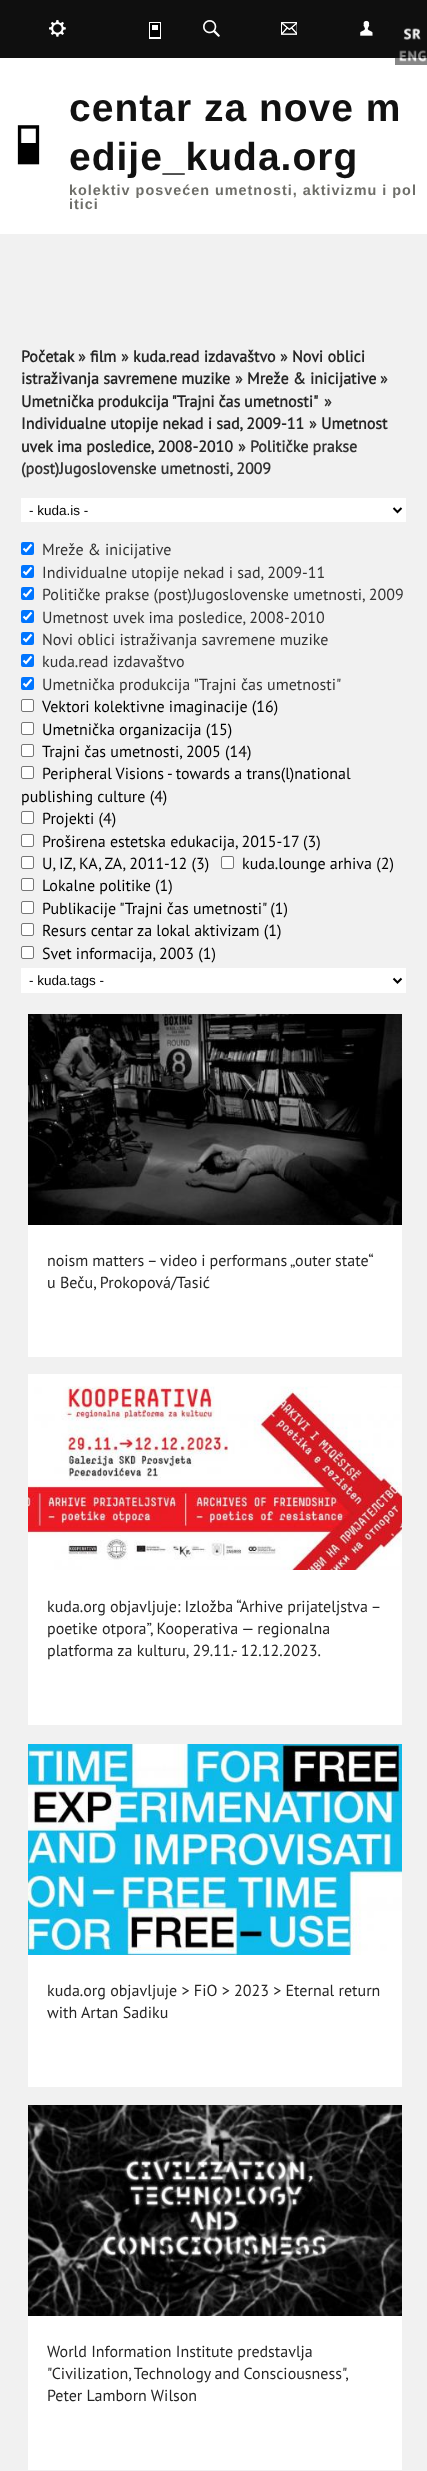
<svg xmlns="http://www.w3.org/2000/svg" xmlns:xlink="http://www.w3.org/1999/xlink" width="427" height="2471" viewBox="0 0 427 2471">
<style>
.cls-1{font:bold 39px Liberation Sans;letter-spacing:1px;fill:#111111}
.cls-2{font:bold 14.4px Liberation Sans;letter-spacing:1px;fill:#6e6e69}
.cls-3{font:bold 16px PT Sans;fill:#262626}
.cls-4{font:bold 16px PT Sans;fill:#333333}
.cls-5{font:13.5px Liberation Sans;fill:#000000}
.cls-6{font:16px PT Sans;fill:#333333}
.cls-7{font:16px PT Sans;fill:#000000}
.cls-8{font:16px PT Sans;fill:#262626}
</style>
<rect width="100%" height="100%" fill="#f1f1f1"/>
<rect fill="#0f0f0f" x="0" y="0" width="427" height="58"/>
<image xlink:href="image0.png" x="49" y="20" width="17" height="17"/>
<rect fill="#ffffff" x="149" y="22" width="12" height="17"/>
<rect fill="#000000" x="150" y="23" width="10" height="14"/>
<rect fill="#ffffff" x="152" y="25" width="6" height="5"/>
<image xlink:href="image1.png" x="203" y="20" width="17" height="17"/>
<image xlink:href="image2.png" x="281" y="22" width="16" height="13"/>
<image xlink:href="image3.png" x="360" y="20" width="13" height="16"/>
<rect fill="#ffffff" x="0" y="58" width="427" height="176"/>
<image xlink:href="image4.png" x="17" y="125" width="23" height="40"/>
<image xlink:href="image5.png" x="403" y="28" width="18" height="12"/>
<image xlink:href="image6.png" x="395" y="50" width="32" height="15"/>
<rect fill="#ffffff" x="21" y="498" width="385" height="24"/>
<path fill="none" stroke="#000000" stroke-width="2" d="M393.5 508L397.5 512L401.5 508"/>
<rect fill="#0075ff" x="21" y="542" width="13" height="13" rx="2"/>
<path fill="none" stroke="#ffffff" stroke-width="2.1" d="M23.5 548.5L26 551L31.5 544.5"/>
<rect fill="#0075ff" x="21" y="565" width="13" height="13" rx="2"/>
<path fill="none" stroke="#ffffff" stroke-width="2.1" d="M23.5 571.5L26 574L31.5 567.5"/>
<rect fill="#0075ff" x="21" y="587" width="13" height="13" rx="2"/>
<path fill="none" stroke="#ffffff" stroke-width="2.1" d="M23.5 593.5L26 596L31.5 589.5"/>
<rect fill="#0075ff" x="21" y="610" width="13" height="13" rx="2"/>
<path fill="none" stroke="#ffffff" stroke-width="2.1" d="M23.5 616.5L26 619L31.5 612.5"/>
<rect fill="#0075ff" x="21" y="632" width="13" height="13" rx="2"/>
<path fill="none" stroke="#ffffff" stroke-width="2.1" d="M23.5 638.5L26 641L31.5 634.5"/>
<rect fill="#0075ff" x="21" y="654" width="13" height="13" rx="2"/>
<path fill="none" stroke="#ffffff" stroke-width="2.1" d="M23.5 660.5L26 663L31.5 656.5"/>
<rect fill="#0075ff" x="21" y="677" width="13" height="13" rx="2"/>
<path fill="none" stroke="#ffffff" stroke-width="2.1" d="M23.5 683.5L26 686L31.5 679.5"/>
<rect fill="#ffffff" stroke="#767676" x="21.5" y="699.5" width="12" height="12" rx="1.5"/>
<rect fill="#ffffff" stroke="#767676" x="21.5" y="722.5" width="12" height="12" rx="1.5"/>
<rect fill="#ffffff" stroke="#767676" x="21.5" y="744.5" width="12" height="12" rx="1.5"/>
<rect fill="#ffffff" stroke="#767676" x="21.5" y="766.5" width="12" height="12" rx="1.5"/>
<rect fill="#ffffff" stroke="#767676" x="21.5" y="811.5" width="12" height="12" rx="1.5"/>
<rect fill="#ffffff" stroke="#767676" x="21.5" y="834.5" width="12" height="12" rx="1.5"/>
<rect fill="#ffffff" stroke="#767676" x="21.5" y="856.5" width="12" height="12" rx="1.5"/>
<rect fill="#ffffff" stroke="#767676" x="221.5" y="856.5" width="12" height="12" rx="1.5"/>
<rect fill="#ffffff" stroke="#767676" x="21.5" y="878.5" width="12" height="12" rx="1.5"/>
<rect fill="#ffffff" stroke="#767676" x="21.5" y="901.5" width="12" height="12" rx="1.5"/>
<rect fill="#ffffff" stroke="#767676" x="21.5" y="923.5" width="12" height="12" rx="1.5"/>
<rect fill="#ffffff" stroke="#767676" x="21.5" y="946.5" width="12" height="12" rx="1.5"/>
<rect fill="#ffffff" x="21" y="968" width="385" height="25"/>
<path fill="none" stroke="#000000" stroke-width="2" d="M393.5 978.5L397.5 982.5L401.5 978.5"/>
<rect fill="#ffffff" x="28" y="1225" width="374" height="132"/>
<image xlink:href="image7.png" x="28" y="1014" width="374" height="211"/>
<rect fill="#ffffff" x="28" y="1374" width="374" height="351"/>
<image xlink:href="image8.png" x="28" y="1386" width="374" height="184"/>
<rect fill="#ffffff" x="28" y="1955" width="374" height="132"/>
<image xlink:href="image9.png" x="28" y="1744" width="374" height="211"/>
<rect fill="#ffffff" x="28" y="2316" width="374" height="154"/>
<image xlink:href="image10.png" x="28" y="2105" width="374" height="211"/>
<text class="cls-1"><tspan x="69" y="121">centar za nove m</tspan><tspan x="69" y="170">edije_kuda.org</tspan></text>
<text class="cls-2"><tspan x="69" y="195">kolektiv posvećen umetnosti, aktivizmu i pol</tspan><tspan x="69" y="209">itici</tspan></text>
<text class="cls-3" x="21" y="362">Početak</text>
<text class="cls-4" x="78" y="362">»</text>
<text class="cls-3" x="90" y="362">film</text>
<text class="cls-4" x="121" y="362">»</text>
<text class="cls-3" x="133" y="362">kuda.read izdavaštvo</text>
<text class="cls-4" x="280" y="362">»</text>
<text class="cls-3" x="292" y="362">Novi oblici</text>
<text class="cls-3" x="21" y="384">istraživanja savremene muzike</text>
<text class="cls-4" x="235" y="384">»</text>
<text class="cls-3" x="247" y="384">Mreže &amp; inicijative</text>
<text class="cls-4" x="380" y="384">»</text>
<text class="cls-3" x="21" y="407" word-spacing="-0.5">Umetnička produkcija "Trajni čas umetnosti"</text>
<text class="cls-4" x="324" y="407">»</text>
<text class="cls-3" x="21" y="429">Individualne utopije nekad i sad, 2009-11</text>
<text class="cls-4" x="309" y="429">»</text>
<text class="cls-3" x="321" y="429">Umetnost</text>
<text class="cls-3" x="21" y="452">uvek ima posledice, 2008-2010</text>
<text class="cls-4" x="238" y="452">» Političke prakse</text>
<text class="cls-4" x="21" y="474">(post)Jugoslovenske umetnosti, 2009</text>
<text class="cls-5" x="29" y="515">- kuda.is -</text>
<text class="cls-6"><tspan x="42" y="555">Mreže &amp; inicijative</tspan><tspan x="42" y="578">Individualne utopije nekad i sad, 2009-11</tspan><tspan x="42" y="600">Političke prakse (post)Jugoslovenske umetnosti, 2009</tspan><tspan x="42" y="623">Umetnost uvek ima posledice, 2008-2010</tspan><tspan x="42" y="645">Novi oblici istraživanja savremene muzike</tspan><tspan x="42" y="667">kuda.read izdavaštvo</tspan><tspan x="42" y="690">Umetnička produkcija "Trajni čas umetnosti"</tspan></text>
<text class="cls-7"><tspan x="42" y="712">Vektori kolektivne imaginacije (16)</tspan><tspan x="42" y="735">Umetnička organizacija (15)</tspan><tspan x="42" y="757">Trajni čas umetnosti, 2005 (14)</tspan><tspan x="42" y="779">Peripheral Visions - towards a trans(l)national</tspan></text>
<text class="cls-7" x="21" y="802">publishing culture (4)</text>
<text class="cls-7"><tspan x="42" y="824">Projekti (4)</tspan><tspan x="42" y="847">Proširena estetska edukacija, 2015-17 (3)</tspan><tspan x="42" y="869">U, IZ, KA, ZA, 2011-12 (3)</tspan></text>
<text class="cls-7" x="242" y="869">kuda.lounge arhiva (2)</text>
<text class="cls-7"><tspan x="42" y="891">Lokalne politike (1)</tspan><tspan x="42" y="914">Publikacije "Trajni čas umetnosti" (1)</tspan><tspan x="42" y="936">Resurs centar za lokal aktivizam (1)</tspan><tspan x="42" y="959">Svet informacija, 2003 (1)</tspan></text>
<text class="cls-5" x="29" y="985">- kuda.tags -</text>
<text class="cls-8"><tspan x="47" y="1266" word-spacing="-0.25">noism matters – video i performans „outer state“</tspan><tspan x="47" y="1288">u Beču, Prokopová/Tasić</tspan></text>
<text class="cls-8"><tspan x="47" y="1612" word-spacing="-0.25">kuda.org objavljuje: Izložba “Arhive prijateljstva –</tspan><tspan x="47" y="1634">poetike otpora”, Kooperativa — regionalna</tspan><tspan x="47" y="1656">platforma za kulturu, 29.11.- 12.12.2023.</tspan></text>
<text class="cls-8"><tspan x="47" y="1996">kuda.org objavljuje &gt; FiO &gt; 2023 &gt; Eternal return</tspan><tspan x="47" y="2018">with Artan Sadiku</tspan></text>
<text class="cls-8"><tspan x="47" y="2357">World Information Institute predstavlja</tspan><tspan x="47" y="2379" word-spacing="-0.5">"Civilization, Technology and Consciousness",</tspan><tspan x="47" y="2401">Peter Lamborn Wilson</tspan></text>
</svg>
